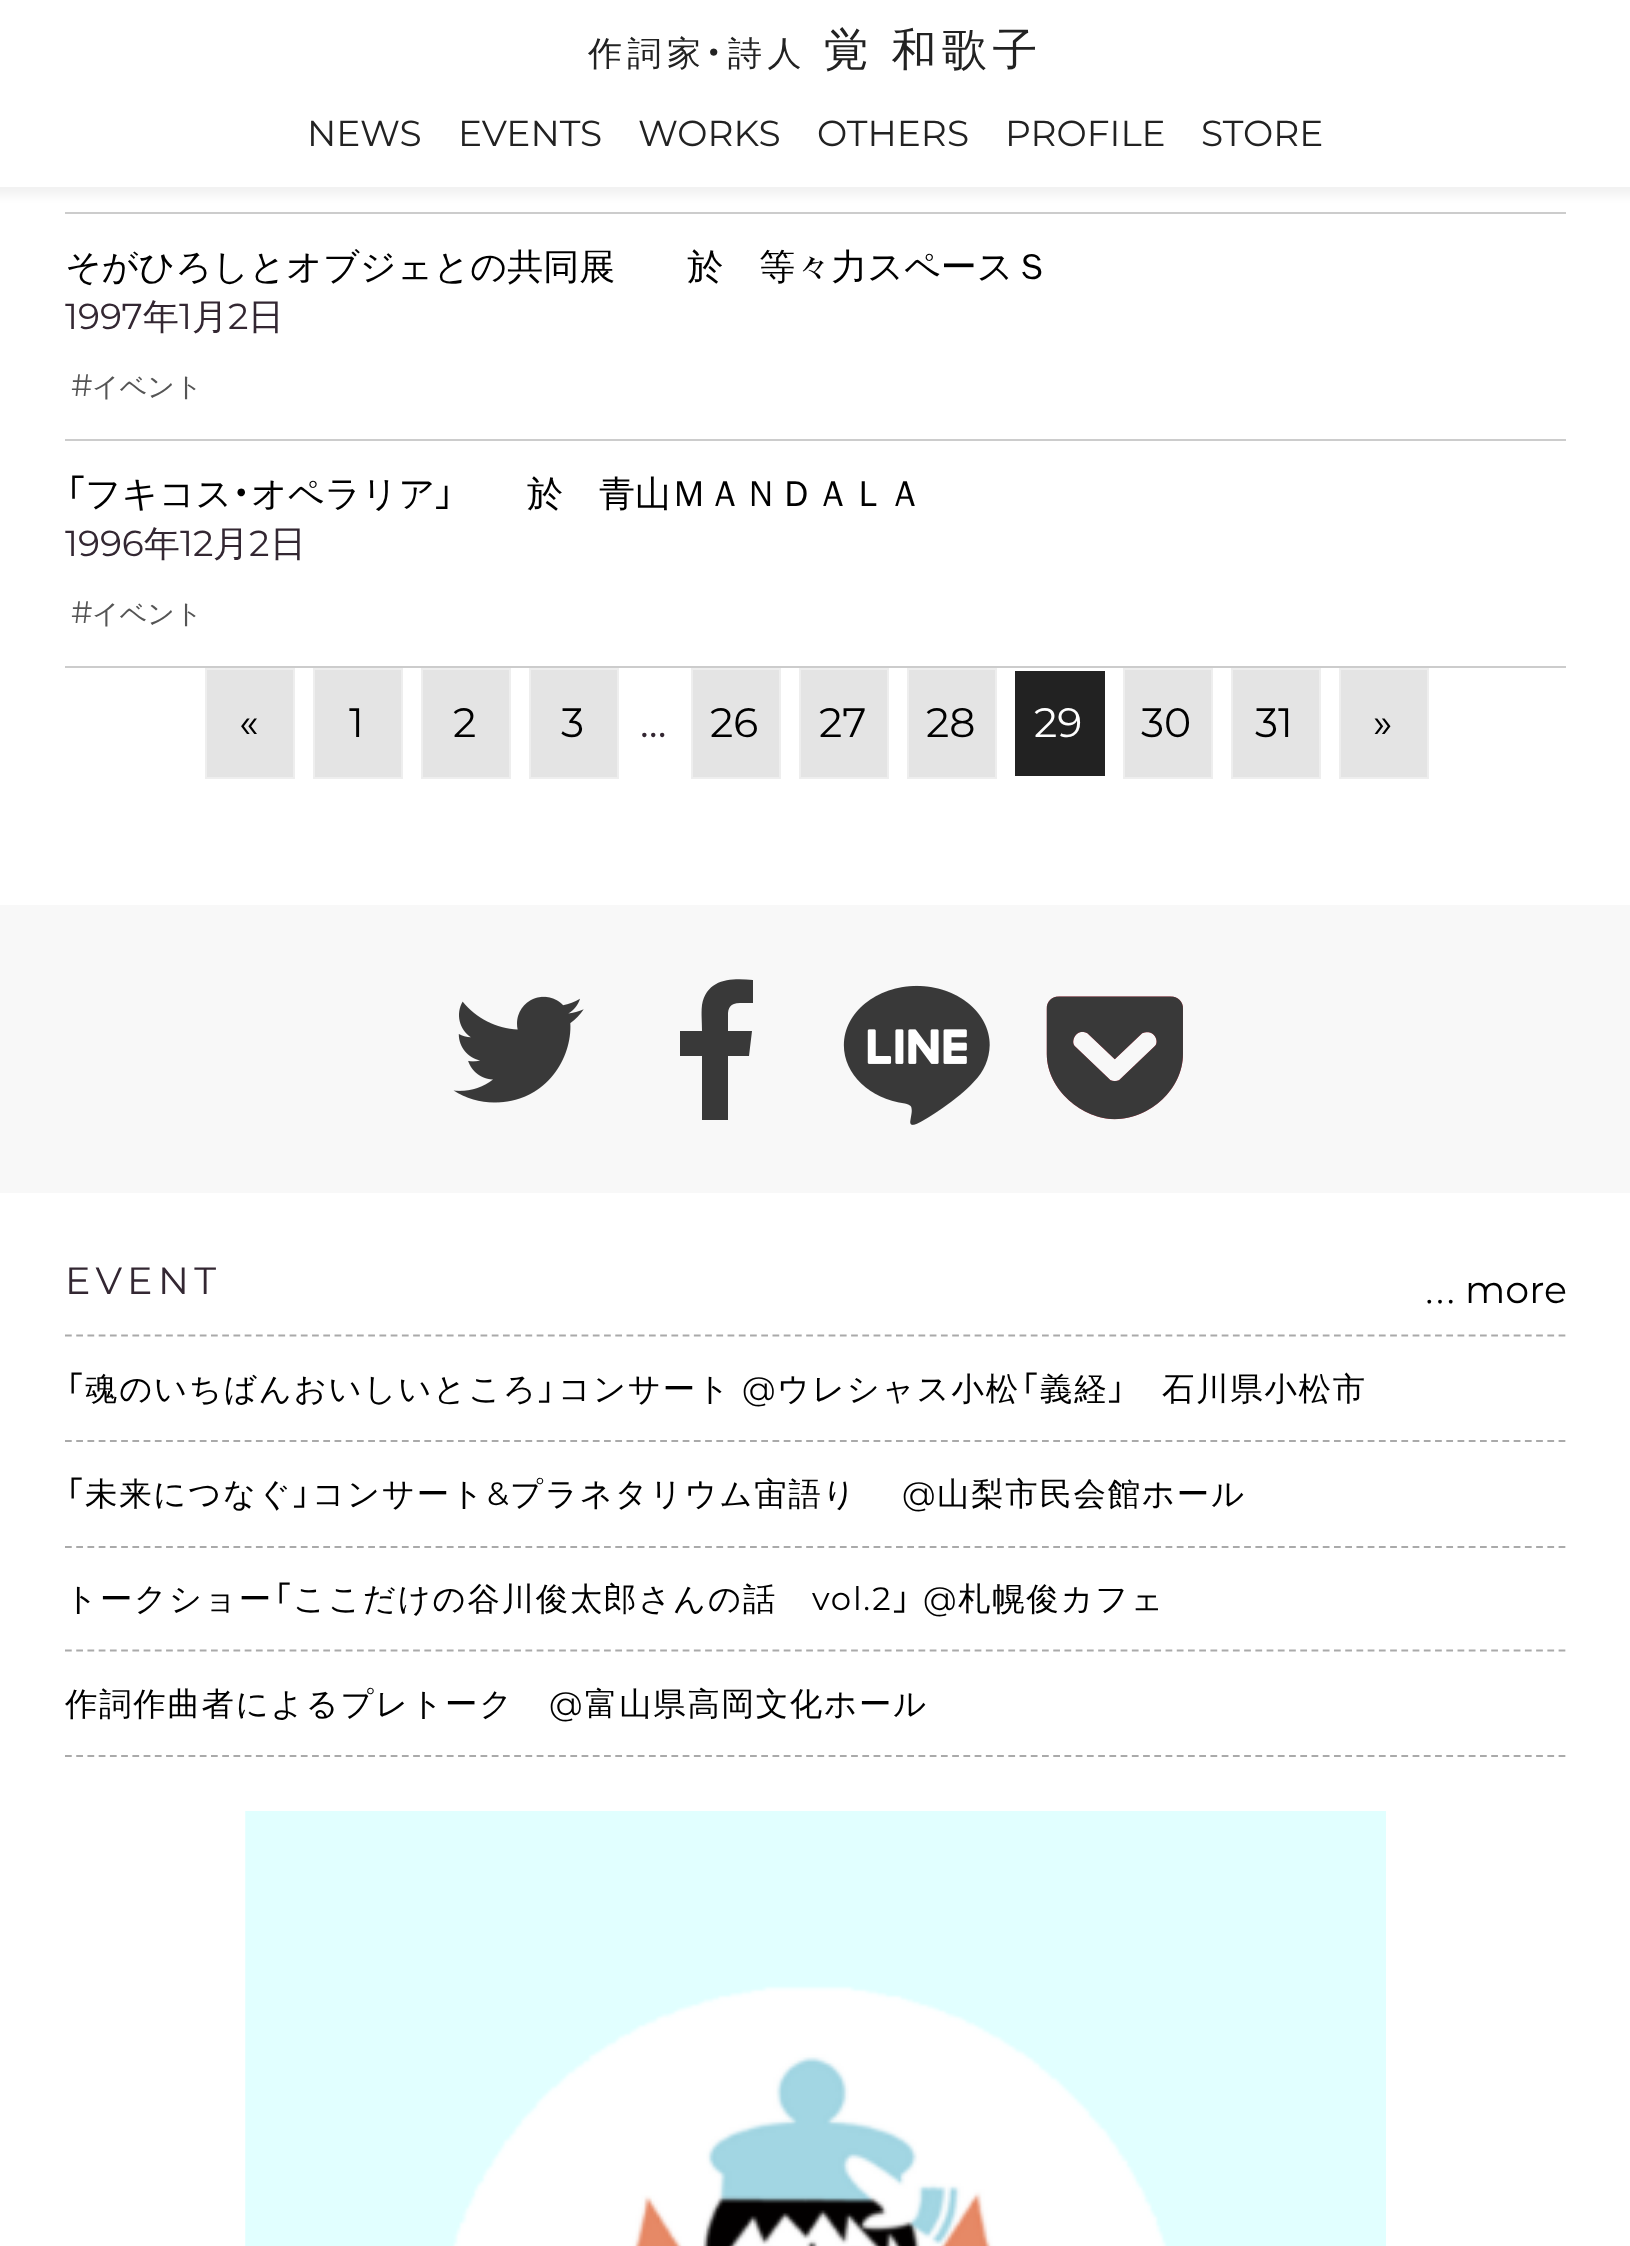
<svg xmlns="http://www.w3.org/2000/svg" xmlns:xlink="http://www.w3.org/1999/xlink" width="1630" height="2246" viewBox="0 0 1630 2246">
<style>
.cls-1{font:500 34px WenQuanYi Zen Hei;letter-spacing:5.5px;fill:#222222}
.cls-2{font:34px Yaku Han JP;letter-spacing:5.5px;fill:#222222}
.cls-3{font:500 45px WenQuanYi Zen Hei;letter-spacing:5.5px;fill:#222222}
.cls-4{font:36px Montserrat;fill:#222222}
.cls-5{font:500 36px WenQuanYi Zen Hei;fill:#000000}
.cls-6{font:36px Montserrat;fill:#332732}
.cls-7{font:500 36px WenQuanYi Zen Hei;fill:#332732}
.cls-8{font:31px Montserrat;fill:#555555}
.cls-9{font:500 27px WenQuanYi Zen Hei;fill:#555555}
.cls-10{font:36px Yaku Han JP;fill:#000000}
.cls-11{font:41px Montserrat;fill:#000000}
.cls-12{font:41px Montserrat;fill:#ffffff}
.cls-13{font:41px Montserrat;fill:#332732}
.cls-14{font:38px Montserrat;letter-spacing:5.5px;fill:#332732}
.cls-15{font:32px Liberation Serif;fill:#000000}
.cls-16{font:38px Montserrat;fill:#000000}
.cls-17{font:32.4px Yaku Han JP;letter-spacing:1.75px;fill:#000000}
.cls-18{font:500 32.4px WenQuanYi Zen Hei;letter-spacing:1.75px;fill:#000000}
.cls-19{font:32.4px Montserrat;letter-spacing:1.75px;fill:#000000}
</style>
<rect width="100%" height="100%" fill="#ffffff"/>
<rect fill="#000000" fill-opacity="0.05" filter="blur(4.5px)" x="-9" y="-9" width="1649" height="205"/>
<rect fill="#ffffff" x="0" y="0" width="1630" height="187"/>
<rect fill="#cccccc" x="65" y="212" width="1501" height="2"/>
<rect fill="#cccccc" x="65" y="439" width="1501" height="2"/>
<rect fill="#cccccc" x="65" y="666" width="1501" height="2"/>
<rect fill="#e4e4e4" stroke="#eeeeee" stroke-width="2" x="206" y="669" width="88" height="109"/>
<rect fill="#e4e4e4" stroke="#eeeeee" stroke-width="2" x="314" y="669" width="88" height="109"/>
<rect fill="#e4e4e4" stroke="#eeeeee" stroke-width="2" x="422" y="669" width="88" height="109"/>
<rect fill="#e4e4e4" stroke="#eeeeee" stroke-width="2" x="530" y="669" width="88" height="109"/>
<rect fill="#e4e4e4" stroke="#eeeeee" stroke-width="2" x="692" y="669" width="88" height="109"/>
<rect fill="#e4e4e4" stroke="#eeeeee" stroke-width="2" x="800" y="669" width="88" height="109"/>
<rect fill="#e4e4e4" stroke="#eeeeee" stroke-width="2" x="908" y="669" width="88" height="109"/>
<rect fill="#222222" x="1015" y="671" width="90" height="105"/>
<rect fill="#e4e4e4" stroke="#eeeeee" stroke-width="2" x="1124" y="669" width="88" height="109"/>
<rect fill="#e4e4e4" stroke="#eeeeee" stroke-width="2" x="1232" y="669" width="88" height="109"/>
<rect fill="#e4e4e4" stroke="#eeeeee" stroke-width="2" x="1340" y="669" width="88" height="109"/>
<rect fill="#f8f8f8" x="0" y="905" width="1630" height="288"/>
<image xlink:href="image0.png" x="453" y="996" width="131" height="107"/>
<path fill="#393939" d="M728 1120V1056H749L752 1031H728V1015C728 1008 730 1003 740 1003H753V980C732 978 707 978 702 1005C701 1013 702 1022 702 1031H680V1056H702V1120Z"/>
<image xlink:href="image1.png" x="843" y="985" width="147" height="140"/>
<image xlink:href="image2.png" x="1046" y="996" width="137" height="124"/>
<path fill="none" stroke="#aaaaaa" stroke-width="2.2" stroke-dasharray="6.75 4.48" d="M65 1335.5H1566"/>
<path fill="none" stroke="#aaaaaa" stroke-width="2.2" stroke-dasharray="6.75 4.48" d="M65 1441H1566"/>
<path fill="none" stroke="#aaaaaa" stroke-width="2.2" stroke-dasharray="6.75 4.48" d="M65 1547H1566"/>
<path fill="none" stroke="#aaaaaa" stroke-width="2.2" stroke-dasharray="6.75 4.48" d="M65 1650.5H1566"/>
<path fill="none" stroke="#aaaaaa" stroke-width="2.2" stroke-dasharray="6.75 4.48" d="M65 1756H1566"/>
<image xlink:href="image3.png" x="245" y="1811" width="1141" height="435"/>
<text class="cls-1" x="588" y="65">作詞家</text>
<text class="cls-2" x="705" y="65">・</text>
<text class="cls-1" x="728" y="65">詩人</text>
<text class="cls-3" x="824" y="65" word-spacing="-2">覚 和歌子</text>
<text class="cls-4" x="307" y="146">NEWS</text>
<text class="cls-4" x="458" y="146">EVENTS</text>
<text class="cls-4" x="638" y="146">WORKS</text>
<text class="cls-4" x="817" y="146">OTHERS</text>
<text class="cls-4" x="1005" y="146">PROFILE</text>
<text class="cls-4" x="1201" y="146">STORE</text>
<text class="cls-5" x="65" y="279">そがひろしとオブジェとの共同展　　於　等々力スペースＳ</text>
<text class="cls-6" x="65" y="329">1997</text>
<text class="cls-7" x="143" y="329">年</text>
<text class="cls-6" x="179" y="329">1</text>
<text class="cls-7" x="192" y="329">月</text>
<text class="cls-6" x="228" y="329">2</text>
<text class="cls-7" x="248" y="329">日</text>
<text class="cls-8" x="71" y="396">#</text>
<text class="cls-9" x="92" y="396">イベント</text>
<text class="cls-10" x="65" y="506">「</text>
<text class="cls-5" x="85" y="506">フキコス</text>
<text class="cls-10" x="232" y="506">・</text>
<text class="cls-5" x="251" y="506">オペラリア</text>
<text class="cls-10" x="435" y="506">」</text>
<text class="cls-5" x="527" y="506">於　青山ＭＡＮＤＡＬＡ</text>
<text class="cls-6" x="65" y="556">1996</text>
<text class="cls-7" x="144" y="556">年</text>
<text class="cls-6" x="180" y="556">12</text>
<text class="cls-7" x="213" y="556">月</text>
<text class="cls-6" x="249" y="556">2</text>
<text class="cls-7" x="270" y="556">日</text>
<text class="cls-8" x="71" y="623">#</text>
<text class="cls-9" x="92" y="623">イベント</text>
<text class="cls-11" x="239" y="737">«</text>
<text class="cls-11" x="349" y="737">1</text>
<text class="cls-11" x="453" y="737">2</text>
<text class="cls-11" x="561" y="737">3</text>
<text class="cls-11" x="710" y="737">26</text>
<text class="cls-11" x="819" y="737">27</text>
<text class="cls-11" x="926" y="737">28</text>
<text class="cls-12" x="1034" y="737">29</text>
<text class="cls-11" x="1141" y="737">30</text>
<text class="cls-11" x="1255" y="737">31</text>
<text class="cls-11" x="1373" y="737">»</text>
<text class="cls-13" x="640" y="737">…</text>
<text class="cls-14" x="65" y="1294">EVENT</text>
<text class="cls-15" x="1424" y="1303">…</text>
<text class="cls-16" x="1465" y="1303">more</text>
<text class="cls-17" x="65" y="1400">「</text>
<text class="cls-18" x="85" y="1400">魂のいちばんおいしいところ</text>
<text class="cls-17" x="538" y="1400">」</text>
<text class="cls-18" x="558" y="1400">コンサート</text>
<text class="cls-19" x="742" y="1400">@</text>
<text class="cls-18" x="777" y="1400">ウレシャス小松</text>
<text class="cls-17" x="1020" y="1400">「</text>
<text class="cls-18" x="1040" y="1400">義経</text>
<text class="cls-17" x="1108" y="1400">」</text>
<text class="cls-18" x="1162" y="1400">石川県小松市</text>
<text class="cls-17" x="65" y="1505">「</text>
<text class="cls-18" x="85" y="1505">未来につなぐ</text>
<text class="cls-17" x="293" y="1505">」</text>
<text class="cls-18" x="312" y="1505">コンサート</text>
<text class="cls-19" x="487" y="1505">&amp;</text>
<text class="cls-18" x="510" y="1505">プラネタリウム宙語り</text>
<text class="cls-19" x="902" y="1505">@</text>
<text class="cls-18" x="937" y="1505">山梨市民会館ホール</text>
<text class="cls-18" x="65" y="1610">トークショー</text>
<text class="cls-17" x="273" y="1610">「</text>
<text class="cls-18" x="293" y="1610">ここだけの谷川俊太郎さんの話</text>
<text class="cls-19" x="812" y="1610">vol.2</text>
<text class="cls-17" x="893" y="1610">」</text>
<text class="cls-19" x="923" y="1610">@</text>
<text class="cls-18" x="958" y="1610">札幌俊カフェ</text>
<text class="cls-18" x="65" y="1715">作詞作曲者によるプレトーク</text>
<text class="cls-19" x="549" y="1715">@</text>
<text class="cls-18" x="585" y="1715">富山県高岡文化ホール</text>
</svg>
